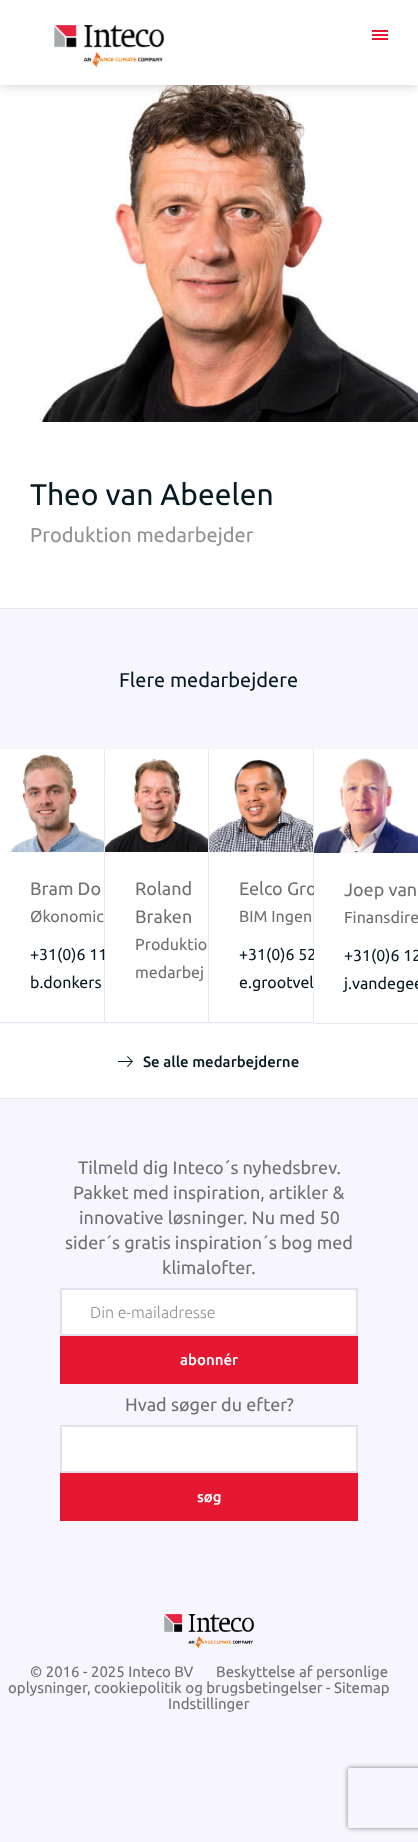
<svg xmlns="http://www.w3.org/2000/svg" xmlns:xlink="http://www.w3.org/1999/xlink" width="418" height="1842" viewBox="0 0 418 1842">
<style>
.cls-1{font:30px Ubuntu;fill:#061a23}
.cls-2{font:20px Ubuntu;fill:#919191}
.cls-3{font:20px Ubuntu;fill:#061a23}
.cls-4{font:18px Ubuntu;fill:#707070}
.cls-5{font:16px Ubuntu;fill:#707070}
.cls-6{font:16px Ubuntu;fill:#061a23}
.cls-7{font:500 15px Ubuntu;fill:#061a23}
.cls-8{font:300 16px Ubuntu;fill:#919191}
.cls-9{font:500 15px Ubuntu;fill:#ffffff}
.cls-10{font:15px Ubuntu;fill:#707070}
</style>
<defs>
<clipPath id="clip1"><path d="M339 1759H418V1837H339ZM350 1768H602C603 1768 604 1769 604 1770V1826C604 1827 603 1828 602 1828H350C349 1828 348 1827 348 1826V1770C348 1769 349 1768 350 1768Z" clip-rule="evenodd"/></clipPath>
</defs>
<rect width="100%" height="100%" fill="#f7f6fe"/>
<rect fill="#ffffff" x="0" y="85" width="418" height="523"/>
<image xlink:href="image1.png" x="39" y="85" width="379" height="337"/>
<rect fill="#000000" fill-opacity="0.2" filter="blur(6px)" x="0" y="0" width="418" height="85"/>
<rect fill="#ffffff" x="0" y="0" width="418" height="85"/>
<image xlink:href="image0.png" x="54" y="25" width="110" height="43"/>
<rect fill="#e61831" x="372" y="30" width="16" height="2"/>
<rect fill="#e61831" x="372" y="34" width="16" height="2"/>
<rect fill="#e61831" x="372" y="38" width="16" height="2"/>
<rect fill="#e8e8f0" x="0" y="608" width="418" height="1"/>
<rect fill="#ffffff" x="0" y="749" width="104" height="273"/>
<rect fill="#e8e8f0" x="104" y="749" width="1" height="274"/>
<rect fill="#e8e8f0" x="0" y="1022" width="105" height="1"/>
<image xlink:href="image2.png" x="9" y="754" width="95" height="98"/>
<rect fill="#ffffff" x="105" y="749" width="103" height="273"/>
<rect fill="#e8e8f0" x="208" y="749" width="1" height="274"/>
<rect fill="#e8e8f0" x="105" y="1022" width="104" height="1"/>
<image xlink:href="image3.png" x="105" y="758" width="103" height="94"/>
<rect fill="#ffffff" x="209" y="749" width="104" height="273"/>
<rect fill="#e8e8f0" x="313" y="749" width="1" height="274"/>
<rect fill="#e8e8f0" x="209" y="1022" width="105" height="1"/>
<image xlink:href="image4.png" x="209" y="759" width="104" height="93"/>
<rect fill="#e8e8f0" x="314" y="1023" width="104" height="1"/>
<rect fill="#ffffff" x="0" y="1024" width="418" height="74"/>
<rect fill="#e8e8f0" x="0" y="1098" width="418" height="1"/>
<image xlink:href="image6.png" x="118" y="1056" width="15" height="11"/>
<rect fill="#ffffff" stroke="#e2e2ef" stroke-width="2" x="61" y="1289" width="296" height="46"/>
<rect fill="#e61831" x="60" y="1336" width="298" height="48"/>
<rect fill="#ffffff" stroke="#e2e2ef" stroke-width="2" x="61" y="1426" width="296" height="46"/>
<rect fill="#e61831" x="60" y="1473" width="298" height="48"/>
<image xlink:href="image7.png" x="164" y="1614" width="90" height="35"/>
<g clip-path="url(#clip1)">
<rect fill="#808080" filter="blur(2.5px)" x="348" y="1768" width="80" height="60" rx="2"/>
</g>
<text class="cls-1" x="30" y="505">Theo van Abeelen</text>
<text class="cls-2" x="30" y="542">Produktion medarbejder</text>
<text class="cls-3" x="119" y="687">Flere medarbejdere</text>
<text class="cls-4" x="30" y="895">Bram Do</text>
<text class="cls-5" x="30" y="922">Økonomic</text>
<text class="cls-6"><tspan x="30" y="960">+31(0)6 11</tspan><tspan x="30" y="988">b.donkers</tspan></text>
<text class="cls-4"><tspan x="135" y="895">Roland</tspan><tspan x="135" y="923">Braken</tspan></text>
<text class="cls-5"><tspan x="135" y="950">Produktio</tspan><tspan x="135" y="978">medarbej</tspan></text>
<text class="cls-4" x="239" y="895">Eelco Gro</text>
<text class="cls-5" x="239" y="922">BIM Ingen</text>
<text class="cls-6"><tspan x="239" y="960">+31(0)6 52</tspan><tspan x="239" y="988">e.grootvel</tspan></text>
<rect fill="#ffffff" x="314" y="749" width="104" height="274"/>
<image xlink:href="image5.png" x="314" y="758" width="104" height="95"/>
<text class="cls-4" x="344" y="896">Joep van</text>
<text class="cls-5" x="344" y="923">Finansdire</text>
<text class="cls-6"><tspan x="344" y="961">+31(0)6 12</tspan><tspan x="344" y="989">j.vandegee</tspan></text>
<text class="cls-7" x="143" y="1067">Se alle medarbejderne</text>
<text class="cls-4" x="78" y="1174">Tilmeld dig Inteco´s nyhedsbrev.</text>
<text class="cls-4" x="73" y="1199">Pakket med inspiration, artikler &amp;</text>
<text class="cls-4" x="79" y="1224">innovative løsninger. Nu med 50</text>
<text class="cls-4" x="65" y="1249">sider´s gratis inspiration´s bog med</text>
<text class="cls-4" x="162" y="1274">klimalofter.</text>
<text class="cls-8" x="90" y="1318">Din e-mailadresse</text>
<text class="cls-9" x="180" y="1365">abonnér</text>
<text class="cls-4" x="125" y="1411">Hvad søger du efter?</text>
<text class="cls-9" x="197" y="1502">søg</text>
<text class="cls-10" x="30" y="1677">© 2016 - 2025 Inteco BV</text>
<text class="cls-10" x="216" y="1677">Beskyttelse af personlige</text>
<text class="cls-10" x="8" y="1693">oplysninger, cookiepolitik og brugsbetingelser - Sitemap</text>
<text class="cls-10" x="168" y="1709">Indstillinger</text>
</svg>
